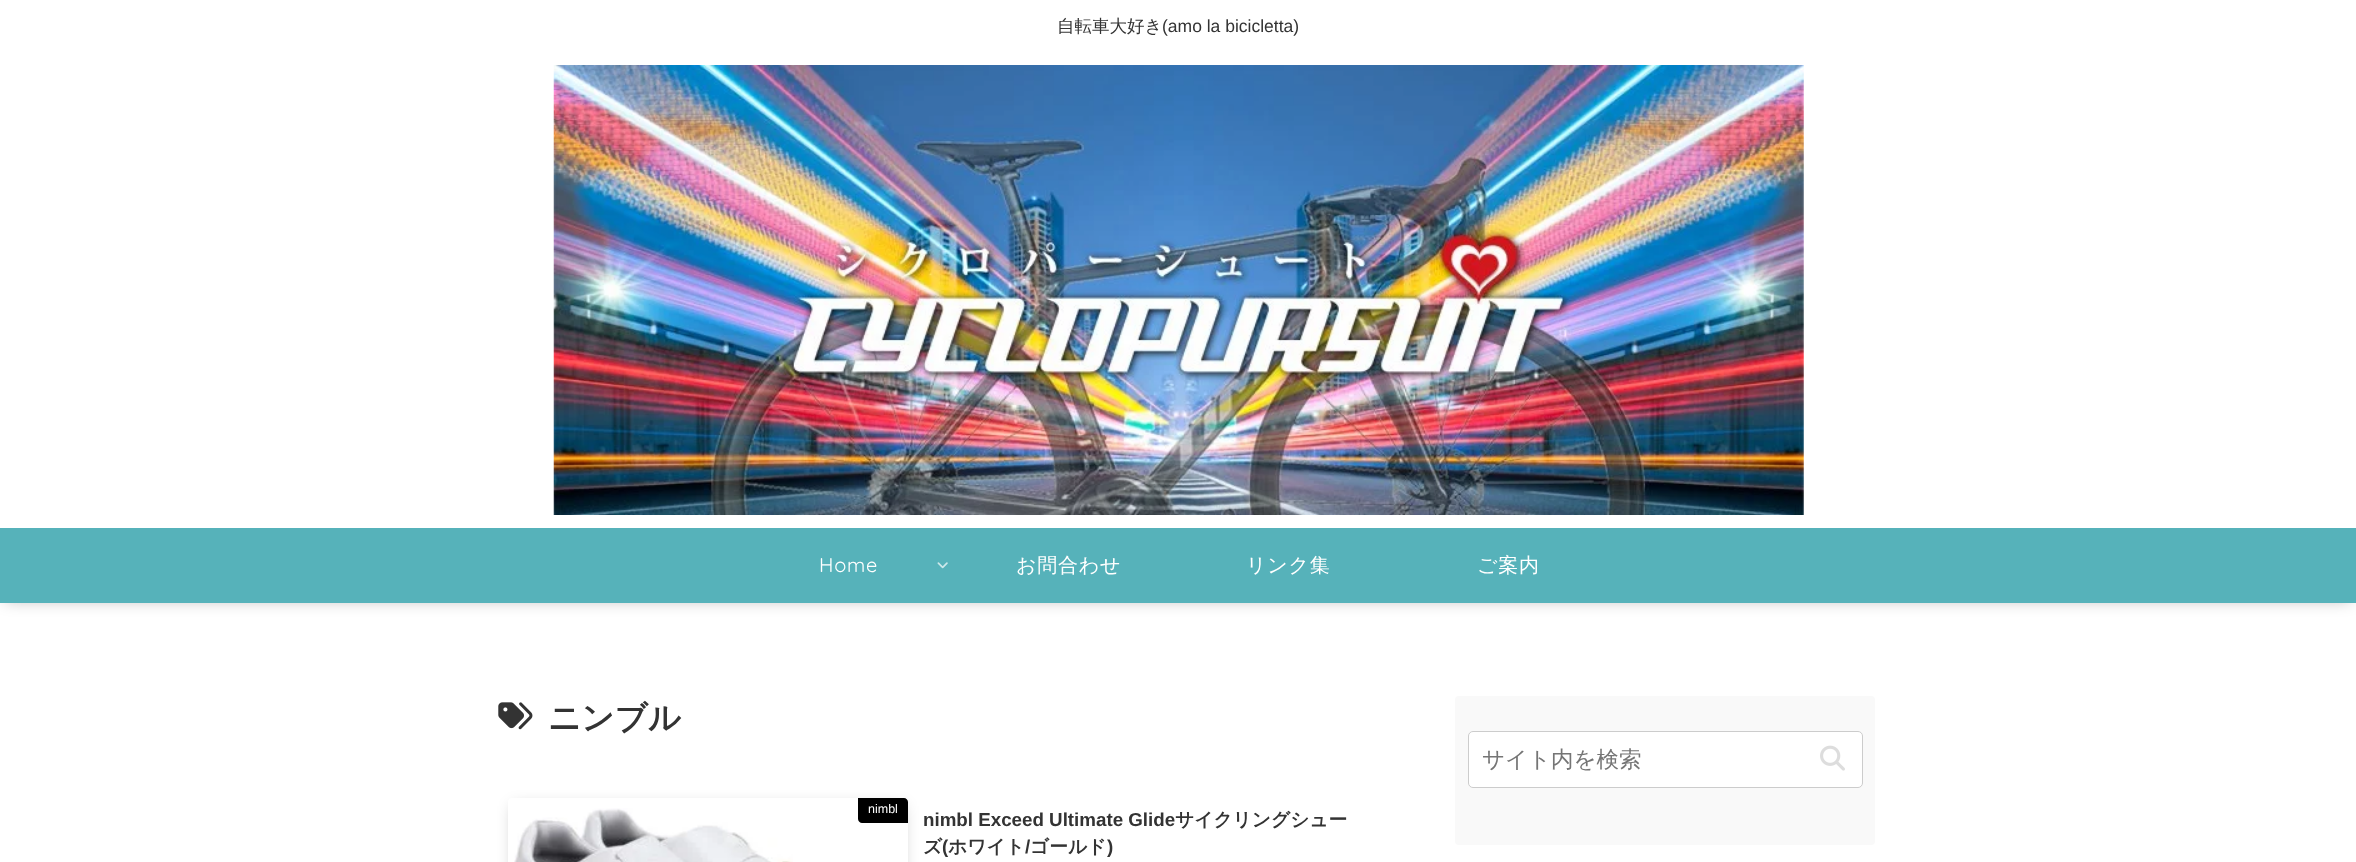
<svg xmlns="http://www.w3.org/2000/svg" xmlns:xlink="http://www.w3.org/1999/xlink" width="2356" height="862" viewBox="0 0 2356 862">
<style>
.cls-1{font:500 17.5px WenQuanYi Zen Hei;fill:#333333}
.cls-2{font:17.5px Liberation Sans;fill:#333333}
.cls-3{font:20px Quicksand;letter-spacing:0.75px;fill:#ffffff}
.cls-4{font:500 20px WenQuanYi Zen Hei;letter-spacing:0.75px;fill:#ffffff}
.cls-5{font:bold 32.5px WenQuanYi Zen Hei;fill:#333333}
.cls-6{font:12.5px Liberation Sans;fill:#ffffff}
.cls-7{font:bold 18.75px Liberation Sans;fill:#333333}
.cls-8{font:bold 18.75px WenQuanYi Zen Hei;fill:#333333}
.cls-9{font:500 22.5px WenQuanYi Zen Hei;fill:#757575}
</style>
<defs>
<clipPath id="clip1"><path d="M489 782H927V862H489ZM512 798H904C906 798 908 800 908 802V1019C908 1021 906 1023 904 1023H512C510 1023 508 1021 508 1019V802C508 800 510 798 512 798Z" clip-rule="evenodd"/></clipPath>
</defs>
<rect width="100%" height="100%" fill="#ffffff"/>
<rect fill="#000000" fill-opacity="0.25" filter="blur(7.5px)" x="5" y="9" width="2346" height="592"/>
<rect fill="#ffffff" x="0" y="0" width="2356" height="528"/>
<image xlink:href="image0.png" x="553" y="65" width="1251" height="450"/>
<rect fill="#56b2ba" x="0" y="528" width="2356" height="75"/>
<image xlink:href="image1.png" x="937" y="562" width="11" height="7"/>
<image xlink:href="image2.png" x="498" y="702" width="35" height="28"/>
<g clip-path="url(#clip1)">
<rect fill="#000000" fill-opacity="0.25" filter="blur(7.5px)" x="513" y="806" width="390" height="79"/>
</g>
<image xlink:href="image3.png" x="514" y="808" width="279" height="54"/>
<path fill="#000000" d="M858 798H904C906 798 908 800 908 802V823H862C860 823 858 821 858 819Z"/>
<rect fill="#f9f9f9" x="1455" y="696" width="420" height="149" rx="4"/>
<rect fill="#ffffff" stroke="#cccccc" x="1468.5" y="731.5" width="394" height="56" rx="4.5"/>
<image xlink:href="image4.png" x="1820" y="745" width="25" height="26"/>
<text class="cls-1" x="1057" y="32">自転車大好き</text>
<text class="cls-2" x="1162" y="32">(amo la bicicletta)</text>
<text class="cls-3" x="819" y="572">Home</text>
<text class="cls-4" x="1016" y="572">お問合わせ</text>
<text class="cls-4" x="1246" y="572">リンク集</text>
<text class="cls-4" x="1477" y="572">ご案内</text>
<text class="cls-5" x="548" y="729">ニンブル</text>
<text class="cls-6" x="868" y="813">nimbl</text>
<text class="cls-7" x="923" y="826">nimbl Exceed Ultimate Glide</text>
<text class="cls-8" x="1175" y="826">サイクリングシュー</text>
<text class="cls-8" x="923" y="853">ズ</text>
<text class="cls-7" x="942" y="853">(</text>
<text class="cls-8" x="948" y="853">ホワイト</text>
<text class="cls-7" x="1025" y="853">/</text>
<text class="cls-8" x="1030" y="853">ゴールド</text>
<text class="cls-7" x="1107" y="853">)</text>
<text class="cls-9" x="1482" y="767">サイト内を検索</text>
</svg>
